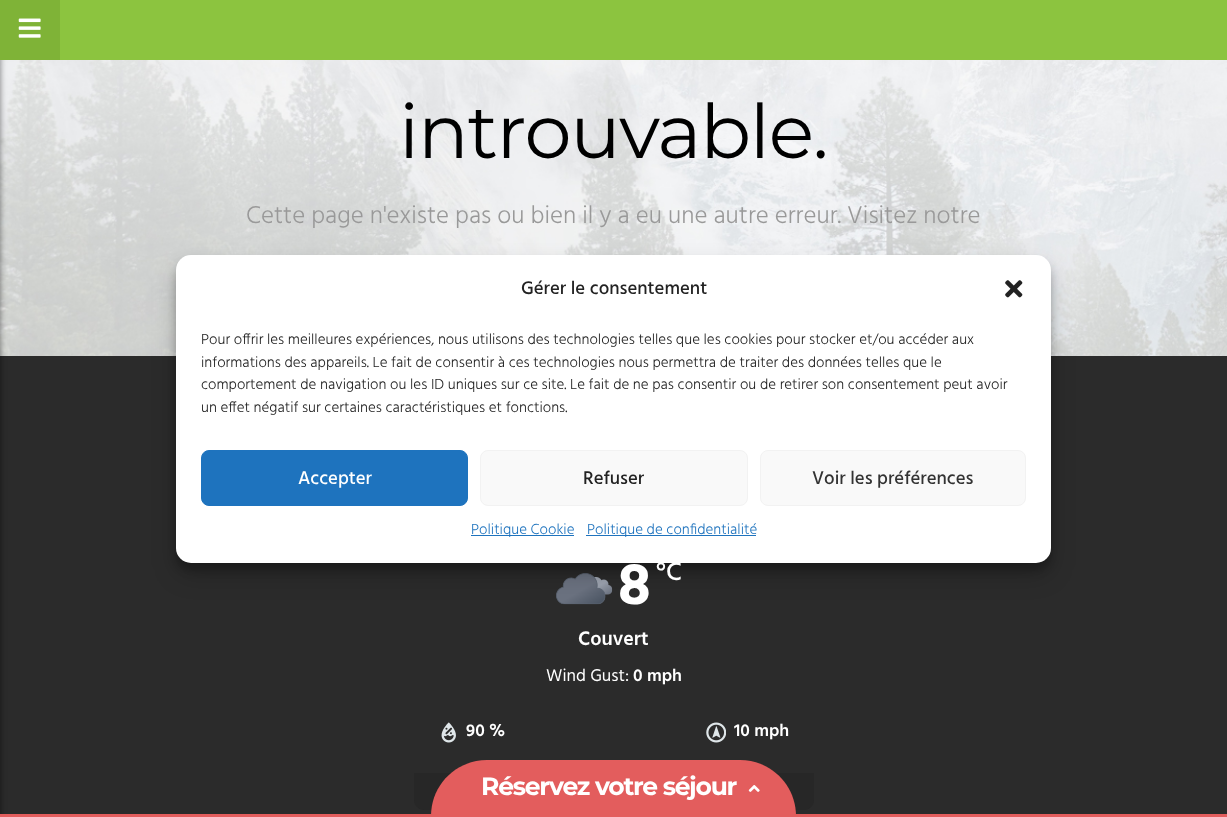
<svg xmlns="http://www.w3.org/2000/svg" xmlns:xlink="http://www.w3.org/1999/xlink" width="1227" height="817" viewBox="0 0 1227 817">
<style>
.cls-1{font:75px Montserrat;letter-spacing:-1.25px;fill:#000000}
.cls-2{font:300 25px Hind;fill:#999999}
.cls-3{font:bold 60px Hind;fill:#ffffff}
.cls-4{font:500 26px Hind;fill:#ffffff}
.cls-5{font:600 20px Hind;fill:#ffffff}
.cls-6{font:17.5px Hind;fill:#ffffff}
.cls-7{font:600 17.5px Hind;fill:#ffffff}
.cls-8{font:bold 25px Montserrat;letter-spacing:-1.25px;fill:#ffffff}
.cls-9{font:500 18.75px Hind;fill:#222222}
.cls-10{font:300 15px Hind;fill:#222222}
.cls-11{font:500 18.75px Hind;fill:#ffffff}
.cls-12{font:500 18.75px Hind;fill:#333333}
.cls-13{font:300 15px Hind;fill:#1e73be}
</style>
<rect width="100%" height="100%" fill="#ffffff"/>
<image xlink:href="image1.png" x="0" y="60" width="1227" height="296"/>
<rect fill="#2b2b2b" x="0" y="356" width="1227" height="458"/>
<rect fill="#000000" fill-opacity="0.5" filter="blur(3px)" x="-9" y="-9" width="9" height="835"/>
<rect fill="#8cc43f" x="60" y="0" width="1167" height="60"/>
<rect fill="#7fb337" x="0" y="0" width="60" height="60"/>
<image xlink:href="image0.png" x="18" y="18" width="23" height="20"/>
<image xlink:href="image2.png" x="556" y="573" width="57" height="32"/>
<image xlink:href="image3.png" x="441" y="722" width="15" height="21"/>
<image xlink:href="image4.png" x="706" y="722" width="20" height="21"/>
<path fill="#272727" d="M414 773H814V800C814 805.5 809.5 810 804 810H424C418.5 810 414 805.5 414 800Z"/>
<rect fill="#e35d5d" x="0" y="814" width="1227" height="3"/>
<path fill="#e35d5d" d="M487 760H740C771 760 796 785 796 816V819H431V816C431 785 456 760 487 760Z"/>
<image xlink:href="image5.png" x="748" y="785" width="12" height="7"/>
<rect fill="#000000" fill-opacity="0.23" filter="blur(4px)" x="176" y="263" width="875" height="307" rx="15"/>
<rect fill="#000000" fill-opacity="0.19" filter="blur(12.5px)" x="176" y="268" width="875" height="307" rx="15"/>
<rect fill="#ffffff" x="176" y="255" width="875" height="308" rx="15"/>
<image xlink:href="image6.png" x="1005" y="280" width="18" height="18"/>
<rect fill="#1e73be" stroke="#1e73be" x="201.5" y="450.5" width="266" height="55" rx="7.5"/>
<rect fill="#f9f9f9" stroke="#f2f2f2" x="480.5" y="450.5" width="267" height="55" rx="7.5"/>
<rect fill="#f9f9f9" stroke="#f2f2f2" x="760.5" y="450.5" width="265" height="55" rx="7.5"/>
<rect fill="#1e73be" x="471" y="535" width="103" height="1"/>
<rect fill="#1e73be" x="586" y="535" width="170" height="1"/>
<text class="cls-1" x="399" y="158">introuvable.</text>
<text class="cls-2" x="246" y="223">Cette page n'existe pas ou bien il y a eu une autre erreur. Visitez notre</text>
<text class="cls-3" x="618" y="604">8</text>
<text class="cls-4" x="656" y="580">°C</text>
<text class="cls-5" x="578" y="645">Couvert</text>
<text class="cls-6" x="546" y="681">Wind Gust:</text>
<text class="cls-7" x="633" y="681">0 mph</text>
<text class="cls-7" x="466" y="736">90 %</text>
<text class="cls-7" x="734" y="736">10 mph</text>
<text class="cls-8" x="481" y="795">Réservez votre séjour</text>
<text class="cls-9" x="521" y="294">Gérer le consentement</text>
<text class="cls-10"><tspan x="201" y="344">Pour offrir les meilleures expériences, nous utilisons des technologies telles que les cookies pour stocker et/ou accéder aux</tspan><tspan x="201" y="367">informations des appareils. Le fait de consentir à ces technologies nous permettra de traiter des données telles que le</tspan><tspan x="201" y="389">comportement de navigation ou les ID uniques sur ce site. Le fait de ne pas consentir ou de retirer son consentement peut avoir</tspan><tspan x="201" y="412">un effet négatif sur certaines caractéristiques et fonctions.</tspan></text>
<text class="cls-11" x="298" y="484">Accepter</text>
<text class="cls-9" x="583" y="484">Refuser</text>
<text class="cls-12" x="812" y="484">Voir les préférences</text>
<text class="cls-13" x="471" y="534">Politique Cookie</text>
<text class="cls-13" x="587" y="534">Politique de confidentialité</text>
</svg>
